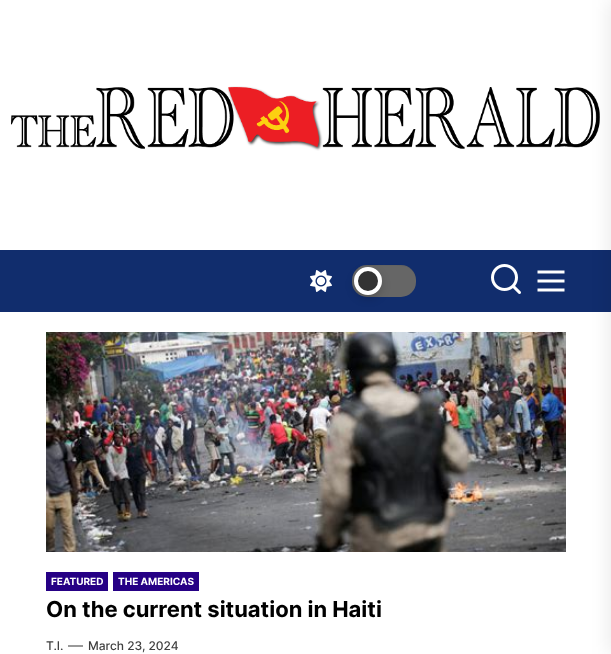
<svg xmlns="http://www.w3.org/2000/svg" xmlns:xlink="http://www.w3.org/1999/xlink" width="611" height="654" viewBox="0 0 611 654">
<style>
.cls-1{font:bold 10px Inter;fill:#ffffff}
.cls-2{font:bold 22px Inter;fill:#000000}
.cls-3{font:500 12px Inter;fill:#404040}
</style>
<rect width="100%" height="100%" fill="#ffffff"/>
<image xlink:href="image0.png" x="11" y="86" width="589" height="65"/>
<rect fill="#112d6d" x="0" y="250" width="611" height="62"/>
<rect fill="#000000" fill-opacity="0.1" filter="blur(10px)" x="611" y="0" width="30" height="654"/>
<image xlink:href="image1.png" x="310" y="270" width="22" height="22"/>
<rect fill="#666666" x="352" y="265" width="64" height="32" rx="15"/>
<path fill="#000000" fill-opacity="0.05" d="M367 266C371 266 402 265 407 267C413 270 416 276 416 282C416 262 399 265 384 265C372 265 353 262 352 279C353 272 359 266 367 266Z"/>
<rect fill="#000000" fill-opacity="0.16" filter="blur(4px)" x="354" y="271" width="28" height="28" rx="14"/>
<circle fill="#333333" stroke="#ffffff" stroke-width="4" cx="368" cy="281" r="12"/>
<image xlink:href="image2.png" x="491" y="264" width="30" height="30"/>
<image xlink:href="image3.png" x="537" y="270" width="28" height="22"/>
<image xlink:href="image4.png" x="46" y="332" width="520" height="220"/>
<rect fill="#260085" x="46" y="572" width="62" height="19"/>
<rect fill="#260085" x="113" y="572" width="86" height="19"/>
<rect fill="#999999" x="68" y="645" width="15" height="2"/>
<text class="cls-1" x="51" y="585">FEATURED</text>
<text class="cls-1" x="118" y="585">THE AMERICAS</text>
<text class="cls-2" x="46" y="617">On the current situation in Haiti</text>
<text class="cls-3" x="46" y="650">T.I.</text>
<text class="cls-3" x="88" y="650">March 23, 2024</text>
</svg>
